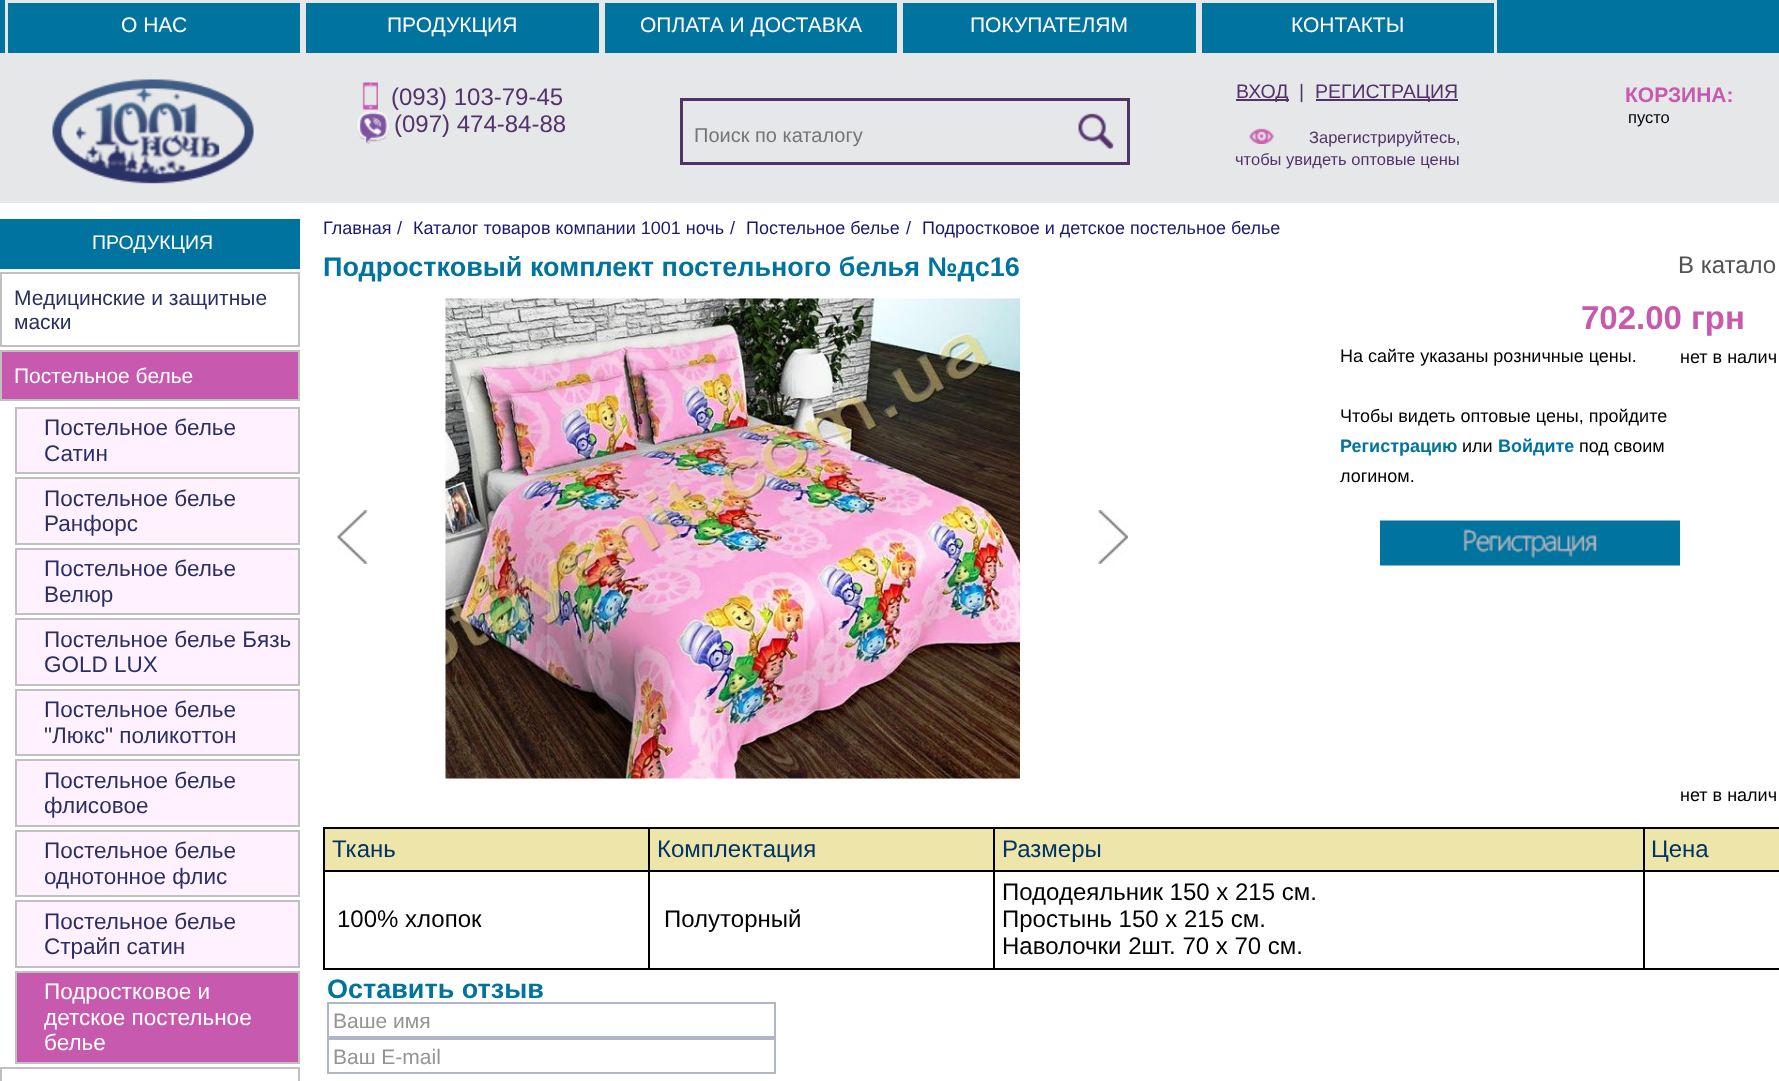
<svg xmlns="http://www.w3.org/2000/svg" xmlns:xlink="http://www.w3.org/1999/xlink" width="1779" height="1081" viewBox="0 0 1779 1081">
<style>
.cls-1{font:21px Liberation Sans;fill:#ffffff}
.cls-2{font:24px Liberation Sans;fill:#51336a}
.cls-3{font:20px Liberation Sans;fill:#757575}
.cls-4{font:19.5px Liberation Sans;fill:#51336a}
.cls-5{font:16.5px Liberation Sans;fill:#51336a}
.cls-6{font:bold 21px Liberation Sans;fill:#c75aae}
.cls-7{font:16.5px Liberation Sans;fill:#000000}
.cls-8{font:19.5px Liberation Sans;fill:#ffffff}
.cls-9{font:21px Liberation Sans;fill:#2a2f63}
.cls-10{font:22.5px Liberation Sans;fill:#2a2f63}
.cls-11{font:22.5px Liberation Sans;fill:#ffffff}
.cls-12{font:18px Liberation Sans;fill:#191970}
.cls-13{font:bold 27px Liberation Sans;fill:#00739e}
.cls-14{font:24px Liberation Sans;fill:#525252}
.cls-15{font:bold 33px Liberation Sans;fill:#c75aae}
.cls-16{font:18px Liberation Sans;fill:#000000}
.cls-17{font:bold 18px Liberation Sans;fill:#00739e}
.cls-18{font:24px Liberation Sans;fill:#003366}
.cls-19{font:24px Liberation Sans;fill:#000000}
.cls-20{font:21px Liberation Sans;fill:#959393}
</style>
<rect width="100%" height="100%" fill="#ffffff"/>
<rect fill="#00739e" x="0" y="0" width="1779" height="53"/>
<rect fill="none" stroke="#e6e7e9" stroke-width="3" x="6.5" y="1.5" width="295" height="53"/>
<rect fill="none" stroke="#e6e7e9" stroke-width="3" x="304.5" y="1.5" width="296" height="53"/>
<rect fill="none" stroke="#e6e7e9" stroke-width="3" x="603.5" y="1.5" width="295" height="53"/>
<rect fill="none" stroke="#e6e7e9" stroke-width="3" x="901.5" y="1.5" width="296" height="53"/>
<rect fill="none" stroke="#e6e7e9" stroke-width="3" x="1200.5" y="1.5" width="295" height="53"/>
<rect fill="#e6e7e9" x="0" y="53" width="1779" height="150"/>
<image xlink:href="image0.png" x="52" y="79" width="202" height="105"/>
<image xlink:href="image1.png" x="362" y="82" width="16" height="28"/>
<image xlink:href="image2.png" x="357" y="111" width="32" height="33"/>
<rect fill="none" stroke="#51336a" stroke-width="3" x="681.5" y="99.5" width="447" height="64"/>
<image xlink:href="image3.png" x="1078" y="113" width="36" height="36"/>
<rect fill="#51336a" x="1316" y="99" width="142" height="2"/>
<image xlink:href="image4.png" x="1249" y="128" width="25" height="16"/>
<rect fill="#51336a" x="1236" y="99" width="53" height="2"/>
<rect fill="#00739e" x="0" y="219" width="300" height="50"/>
<rect fill="none" stroke="#c0c0c0" stroke-width="2" x="1" y="273" width="298" height="73"/>
<rect fill="#c759af" stroke="#c0c0c0" stroke-width="2" x="1" y="351" width="298" height="49"/>
<rect fill="#fff1ff" stroke="#c0c0c0" stroke-width="2" x="16" y="408" width="283" height="65"/>
<rect fill="#fff1ff" stroke="#c0c0c0" stroke-width="2" x="16" y="478" width="283" height="66"/>
<rect fill="#fff1ff" stroke="#c0c0c0" stroke-width="2" x="16" y="549" width="283" height="65"/>
<rect fill="#fff1ff" stroke="#c0c0c0" stroke-width="2" x="16" y="619" width="283" height="66"/>
<rect fill="#fff1ff" stroke="#c0c0c0" stroke-width="2" x="16" y="690" width="283" height="65"/>
<rect fill="#fff1ff" stroke="#c0c0c0" stroke-width="2" x="16" y="760" width="283" height="66"/>
<rect fill="#fff1ff" stroke="#c0c0c0" stroke-width="2" x="16" y="831" width="283" height="65"/>
<rect fill="#fff1ff" stroke="#c0c0c0" stroke-width="2" x="16" y="901" width="283" height="66"/>
<rect fill="#c759af" stroke="#c0c0c0" stroke-width="2" x="16" y="972" width="283" height="91"/>
<rect fill="none" stroke="#c0c0c0" stroke-width="2" x="1" y="1068" width="298" height="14"/>
<image xlink:href="image5.png" x="445" y="298" width="575" height="481"/>
<image xlink:href="image6.png" x="1380" y="520" width="300" height="46"/>
<image xlink:href="image7.png" x="337" y="510" width="31" height="54"/>
<image xlink:href="image8.png" x="1098" y="510" width="30" height="54"/>
<rect fill="#eee5aa" x="325" y="829" width="1454" height="41"/>
<rect fill="#000000" x="1643" y="827" width="136" height="2"/>
<rect fill="#000000" x="1643" y="870" width="136" height="2"/>
<rect fill="#000000" x="1643" y="968" width="136" height="2"/>
<rect fill="#000000" x="1643" y="870" width="2" height="99"/>
<rect fill="#000000" x="993" y="870" width="651" height="2"/>
<rect fill="#000000" x="1643" y="827" width="2" height="45"/>
<rect fill="#000000" x="993" y="827" width="651" height="2"/>
<rect fill="#000000" x="993" y="968" width="651" height="2"/>
<rect fill="#000000" x="993" y="870" width="2" height="99"/>
<rect fill="#000000" x="648" y="870" width="347" height="2"/>
<rect fill="#000000" x="993" y="827" width="2" height="45"/>
<rect fill="#000000" x="648" y="827" width="347" height="2"/>
<rect fill="#000000" x="648" y="968" width="347" height="2"/>
<rect fill="#000000" x="648" y="870" width="2" height="99"/>
<rect fill="#000000" x="323" y="870" width="327" height="2"/>
<rect fill="#000000" x="648" y="827" width="2" height="45"/>
<rect fill="#000000" x="323" y="827" width="327" height="2"/>
<rect fill="#000000" x="323" y="968" width="327" height="2"/>
<rect fill="#000000" x="323" y="870" width="2" height="99"/>
<rect fill="#000000" x="323" y="827" width="2" height="45"/>
<rect fill="none" stroke="#b0b5cb" stroke-width="2" x="328" y="1003" width="447" height="34"/>
<rect fill="none" stroke="#b0b5cb" stroke-width="2" x="328" y="1039" width="447" height="34"/>
<text class="cls-1" x="121" y="32">О НАС</text>
<text class="cls-1" x="387" y="32">ПРОДУКЦИЯ</text>
<text class="cls-1" x="640" y="32">ОПЛАТА И ДОСТАВКА</text>
<text class="cls-1" x="970" y="32">ПОКУПАТЕЛЯМ</text>
<text class="cls-1" x="1291" y="32">КОНТАКТЫ</text>
<text class="cls-2" x="391" y="105">(093) 103-79-45</text>
<text class="cls-2" x="394" y="132">(097) 474-84-88</text>
<text class="cls-3" x="694" y="142">Поиск по каталогу</text>
<text class="cls-4" x="1299" y="98">|</text>
<text class="cls-4" x="1315" y="98">РЕГИСТРАЦИЯ</text>
<text class="cls-5" x="1309" y="143">Зарегистрируйтесь,</text>
<text class="cls-5" x="1235" y="165">чтобы увидеть оптовые цены</text>
<text class="cls-4" x="1236" y="98">ВХОД</text>
<text class="cls-6" x="1625" y="102">КОРЗИНА:</text>
<text class="cls-7" x="1628" y="123">пусто</text>
<text class="cls-8" x="92" y="249">ПРОДУКЦИЯ</text>
<text class="cls-9"><tspan x="14" y="305">Медицинские и защитные</tspan><tspan x="14" y="329">маски</tspan></text>
<text class="cls-1" x="14" y="383">Постельное белье</text>
<text class="cls-10"><tspan x="44" y="435">Постельное белье</tspan><tspan x="44" y="461">Сатин</tspan></text>
<text class="cls-10"><tspan x="44" y="506">Постельное белье</tspan><tspan x="44" y="531">Ранфорс</tspan></text>
<text class="cls-10"><tspan x="44" y="576">Постельное белье</tspan><tspan x="44" y="602">Велюр</tspan></text>
<text class="cls-10"><tspan x="44" y="647">Постельное белье Бязь</tspan><tspan x="44" y="672">GOLD LUX</tspan></text>
<text class="cls-10"><tspan x="44" y="717">Постельное белье</tspan><tspan x="44" y="743">"Люкс" поликоттон</tspan></text>
<text class="cls-10"><tspan x="44" y="788">Постельное белье</tspan><tspan x="44" y="813">флисовое</tspan></text>
<text class="cls-10"><tspan x="44" y="858">Постельное белье</tspan><tspan x="44" y="884">однотонное флис</tspan></text>
<text class="cls-10"><tspan x="44" y="929">Постельное белье</tspan><tspan x="44" y="954">Страйп сатин</tspan></text>
<text class="cls-11"><tspan x="44" y="999">Подростковое и</tspan><tspan x="44" y="1025">детское постельное</tspan><tspan x="44" y="1050">белье</tspan></text>
<text class="cls-12" x="323" y="234">Главная</text>
<text class="cls-12" x="397" y="234">/</text>
<text class="cls-12" x="413" y="234">Каталог товаров компании 1001 ночь</text>
<text class="cls-12" x="730" y="234">/</text>
<text class="cls-12" x="746" y="234">Постельное белье</text>
<text class="cls-12" x="906" y="234">/</text>
<text class="cls-12" x="922" y="234">Подростковое и детское постельное белье</text>
<text class="cls-13" x="323" y="276">Подростковый комплект постельного белья №дc16</text>
<text class="cls-14" x="1678" y="273">В катало</text>
<text class="cls-15" x="1581" y="329">702.00 грн</text>
<text class="cls-16" x="1340" y="362">На сайте указаны розничные цены.</text>
<text class="cls-16" x="1340" y="422">Чтобы видеть оптовые цены, пройдите</text>
<text class="cls-17" x="1340" y="452">Регистрацию</text>
<text class="cls-16" x="1462" y="452">или</text>
<text class="cls-17" x="1498" y="452">Войдите</text>
<text class="cls-16" x="1579" y="452">под своим</text>
<text class="cls-16" x="1340" y="482">логином.</text>
<text class="cls-16" x="1680" y="363">нет в налич</text>
<text class="cls-16" x="1680" y="801">нет в налич</text>
<text class="cls-18" x="332" y="857">Ткань</text>
<text class="cls-18" x="657" y="857">Комплектация</text>
<text class="cls-18" x="1002" y="857">Размеры</text>
<text class="cls-18" x="1651" y="857">Цена</text>
<text class="cls-19" x="337" y="927">100% хлопок</text>
<text class="cls-19" x="664" y="927">Полуторный</text>
<text class="cls-19"><tspan x="1002" y="900">Пододеяльник 150 x 215 см.</tspan><tspan x="1002" y="927">Простынь 150 x 215 см.</tspan><tspan x="1002" y="954">Наволочки 2шт. 70 х 70 см.</tspan></text>
<text class="cls-13" x="327" y="998">Оставить отзыв</text>
<text class="cls-20"><tspan x="333" y="1028">Ваше имя</tspan><tspan x="333" y="1064">Ваш E-mail</tspan></text>
</svg>
